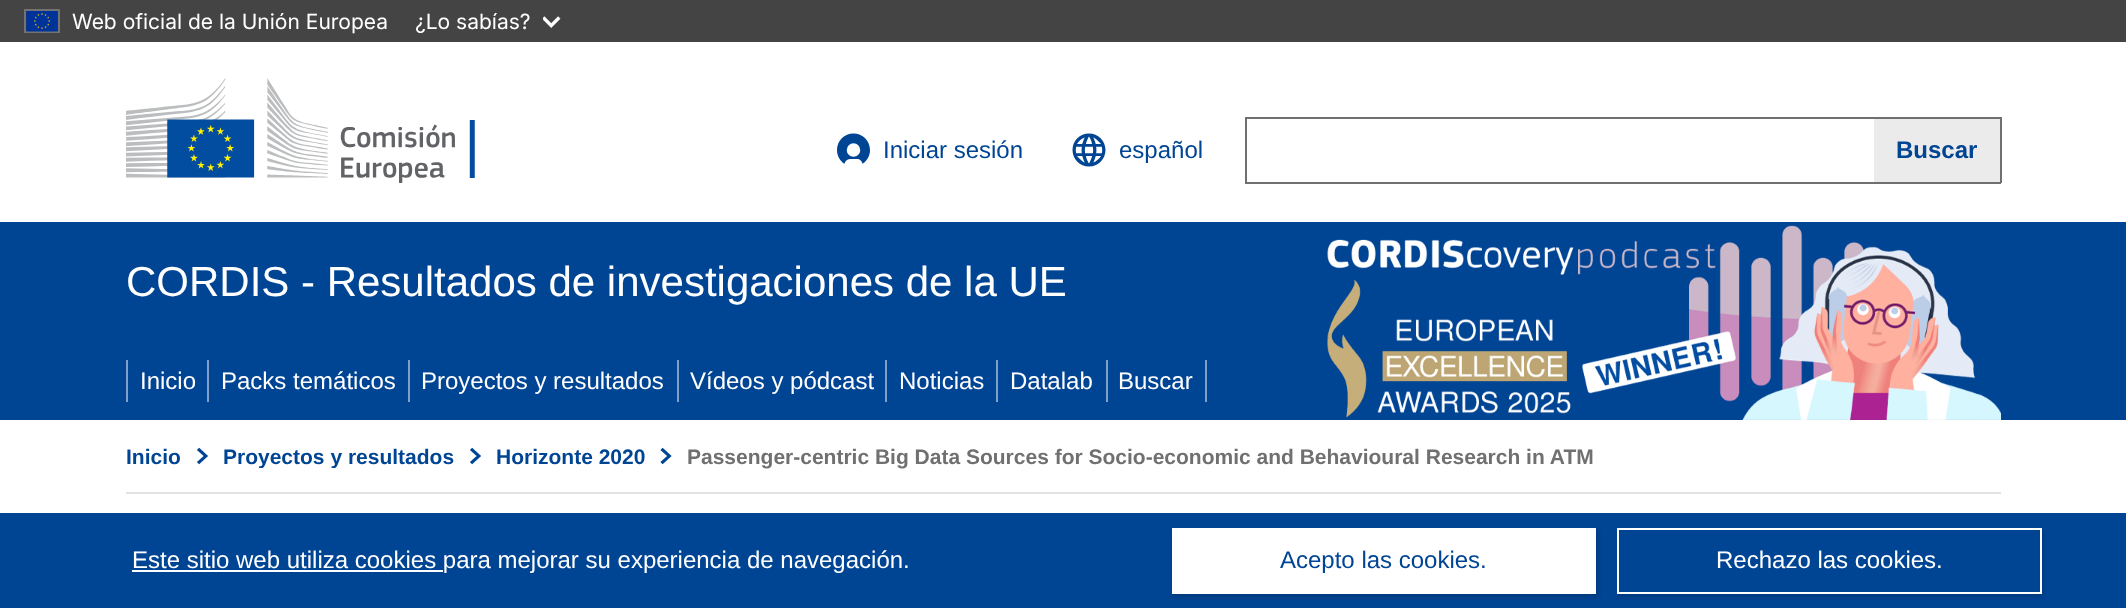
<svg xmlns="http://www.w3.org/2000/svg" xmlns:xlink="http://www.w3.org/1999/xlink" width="2126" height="608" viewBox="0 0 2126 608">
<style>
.cls-1{font:21px Inter;fill:#ffffff}
.cls-2{font:24px Liberation Sans;fill:#004494}
.cls-3{font:bold 24px Liberation Sans;fill:#004494}
.cls-4{font:42px Liberation Sans;fill:#ffffff}
.cls-5{font:24px Liberation Sans;fill:#ffffff}
.cls-6{font:bold 21px Liberation Sans;fill:#004494}
.cls-7{font:bold 21px Liberation Sans;fill:#707070}
</style>
<defs>
<clipPath id="clip1"><rect x="224" y="444" width="231" height="24"/></clipPath>
</defs>
<rect width="100%" height="100%" fill="#ffffff"/>
<rect fill="#444444" x="0" y="0" width="2126" height="42"/>
<rect fill="none" stroke="#737373" stroke-width="2" x="25" y="10" width="34" height="22"/>
<image xlink:href="image0.png" x="26" y="11" width="32" height="21"/>
<image xlink:href="image1.png" x="543" y="16" width="18" height="12"/>
<image xlink:href="image2.png" x="126" y="78" width="349" height="105"/>
<image xlink:href="image3.png" x="837" y="133" width="33" height="31"/>
<image xlink:href="image4.png" x="1072" y="133" width="34" height="34"/>
<rect fill="#707070" x="1245" y="117" width="756" height="2"/>
<rect fill="#707070" x="1245" y="182" width="629" height="2"/>
<rect fill="#707070" x="1245" y="117" width="2" height="66"/>
<rect fill="#ebebeb" x="1874" y="119" width="126" height="63"/>
<rect fill="#707070" x="2000" y="117" width="2" height="66"/>
<rect fill="#707070" x="1874" y="182" width="127" height="2"/>
<rect fill="#004494" x="0" y="222" width="2126" height="198"/>
<image xlink:href="image5.png" x="1327" y="225" width="674" height="195"/>
<rect fill="#7fa1c9" x="126" y="360" width="2" height="42"/>
<rect fill="#7fa1c9" x="207" y="360" width="2" height="42"/>
<rect fill="#7fa1c9" x="408" y="360" width="2" height="42"/>
<rect fill="#7fa1c9" x="677" y="360" width="2" height="42"/>
<rect fill="#7fa1c9" x="885" y="360" width="2" height="42"/>
<rect fill="#7fa1c9" x="996" y="360" width="2" height="42"/>
<rect fill="#7fa1c9" x="1106" y="360" width="2" height="42"/>
<rect fill="#7fa1c9" x="1205" y="360" width="2" height="42"/>
<rect fill="#e3e3e3" x="126" y="492" width="1875" height="2"/>
<image xlink:href="image6.png" x="197" y="447" width="11" height="18"/>
<image xlink:href="image6.png" x="470" y="447" width="11" height="18"/>
<image xlink:href="image7.png" x="660" y="447" width="12" height="18"/>
<rect fill="#004494" x="0" y="513" width="2126" height="95"/>
<rect fill="#ffffff" x="132" y="570" width="311" height="2"/>
<rect fill="#000000" fill-opacity="0.15" filter="blur(2px)" x="1173" y="531" width="425" height="66"/>
<rect fill="#ffffff" x="1172" y="528" width="424" height="66"/>
<rect fill="#000000" fill-opacity="0.15" filter="blur(2px)" x="1619" y="531" width="424" height="66"/>
<rect fill="#004494" stroke="#ffffff" stroke-width="2" x="1618" y="529" width="423" height="64"/>
<text class="cls-1" x="72" y="29">Web oficial de la Unión Europea</text>
<text class="cls-1" x="415" y="29">¿Lo sabías?</text>
<text class="cls-2" x="883" y="158">Iniciar sesión</text>
<text class="cls-2" x="1119" y="158">español</text>
<text class="cls-3" x="1896" y="158">Buscar</text>
<text class="cls-4" x="126" y="296">CORDIS - Resultados de investigaciones de la UE</text>
<text class="cls-5" x="140" y="389">Inicio</text>
<text class="cls-5" x="221" y="389">Packs temáticos</text>
<text class="cls-5" x="421" y="389">Proyectos y resultados</text>
<text class="cls-5" x="690" y="389">Vídeos y pódcast</text>
<text class="cls-5" x="899" y="389">Noticias</text>
<text class="cls-5" x="1010" y="389">Datalab</text>
<text class="cls-5" x="1118" y="389">Buscar</text>
<text class="cls-6" x="126" y="464">Inicio</text>
<g clip-path="url(#clip1)">
<text class="cls-6" x="223" y="464">Proyectos y resultados</text>
</g>
<text class="cls-6" x="496" y="464">Horizonte 2020</text>
<text class="cls-7" x="687" y="464">Passenger-centric Big Data Sources for Socio-economic and Behavioural Research in ATM</text>
<text class="cls-5" x="132" y="568">Este sitio web utiliza cookies para mejorar su experiencia de navegación.</text>
<text class="cls-2" x="1280" y="568">Acepto las cookies.</text>
<text class="cls-5" x="1716" y="568">Rechazo las cookies.</text>
</svg>
